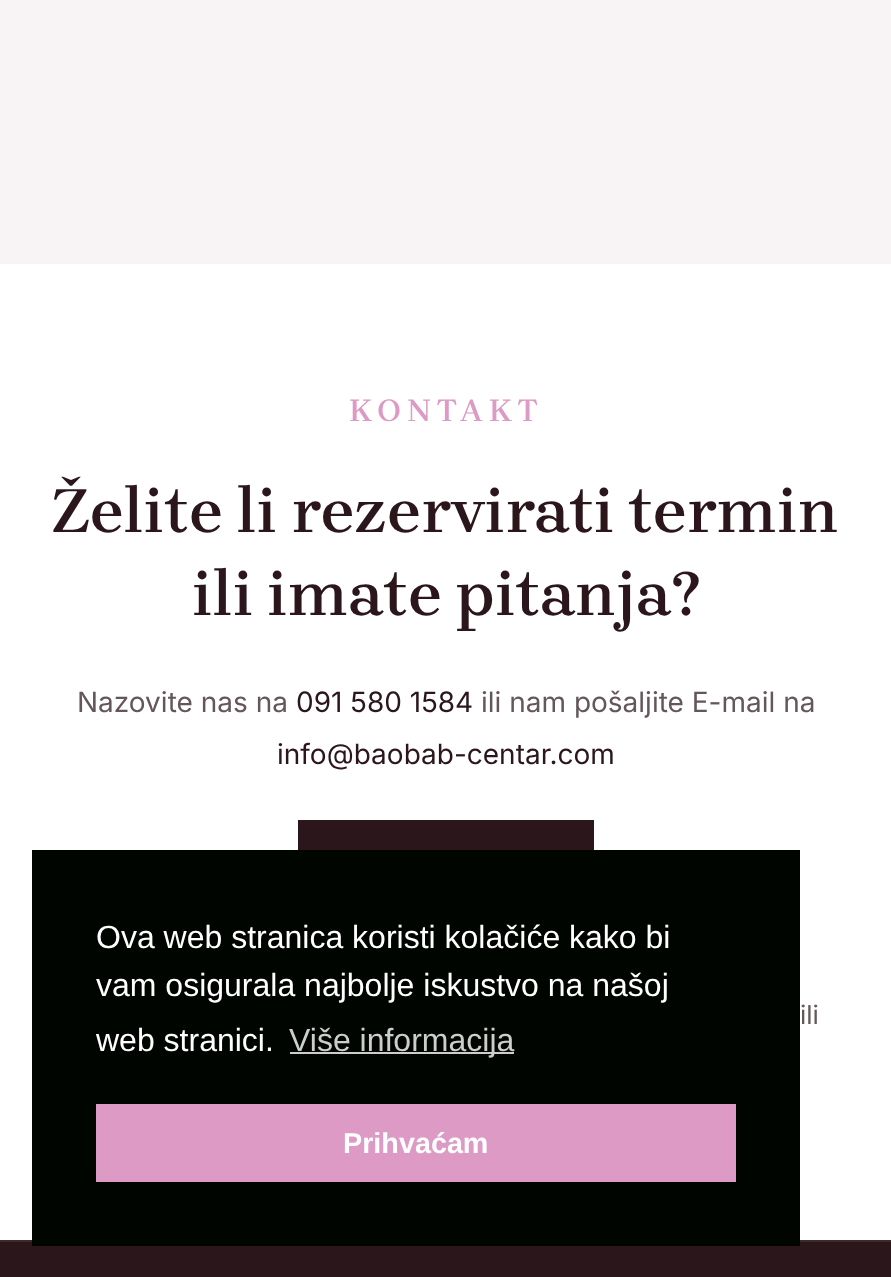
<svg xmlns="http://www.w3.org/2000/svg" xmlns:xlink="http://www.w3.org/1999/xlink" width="891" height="1277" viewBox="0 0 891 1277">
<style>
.cls-1{font:600 32px 'Brygada 1918';letter-spacing:6px;fill:#dc9ac4}
.cls-2{font:600 64px 'Brygada 1918';fill:#2b161b}
.cls-3{font:28px Inter;fill:#645659}
.cls-4{font:28px Inter;fill:#2b161b}
.cls-5{font:26px Inter;fill:#645659}
.cls-6{font:32px Liberation Sans;fill:#ffffff}
.cls-7{font:32px Liberation Sans;fill:#cccdcc}
.cls-8{font:bold 28.75px Liberation Sans;fill:#ffffff}
</style>
<rect width="100%" height="100%" fill="#f8f3f5"/>
<rect fill="#ffffff" x="0" y="264" width="891" height="976"/>
<rect fill="#2b161b" x="298" y="820" width="296" height="30"/>
<rect fill="#2b161b" x="0" y="1242" width="891" height="35"/>
<rect fill="#3c292d" x="0" y="1240" width="891" height="2"/>
<rect fill="#000500" x="32" y="850" width="768" height="396"/>
<rect fill="#cccdcc" x="290" y="1052" width="224" height="2"/>
<rect fill="#dc9ac4" x="96" y="1104" width="640" height="78"/>
<text class="cls-1" x="349" y="421">KONTAKT</text>
<text class="cls-2" x="52" y="532">Želite li rezervirati termin</text>
<text class="cls-2" x="192" y="615">ili imate pitanja?</text>
<text class="cls-3" x="77" y="712">Nazovite nas na</text>
<text class="cls-4" x="296" y="712">091 580 1584</text>
<text class="cls-3" x="481" y="712">ili nam pošaljite E-mail na</text>
<text class="cls-4" x="277" y="764">info@baobab-centar.com</text>
<text class="cls-5" x="800" y="1024">ili</text>
<text class="cls-6"><tspan x="96" y="948">Ova web stranica koristi kolačiće kako bi</tspan><tspan x="96" y="996">vam osigurala najbolje iskustvo na našoj</tspan><tspan x="96" y="1051">web stranici.</tspan></text>
<text class="cls-7" x="289" y="1051">Više informacija</text>
<text class="cls-8" x="343" y="1153">Prihvaćam</text>
</svg>
